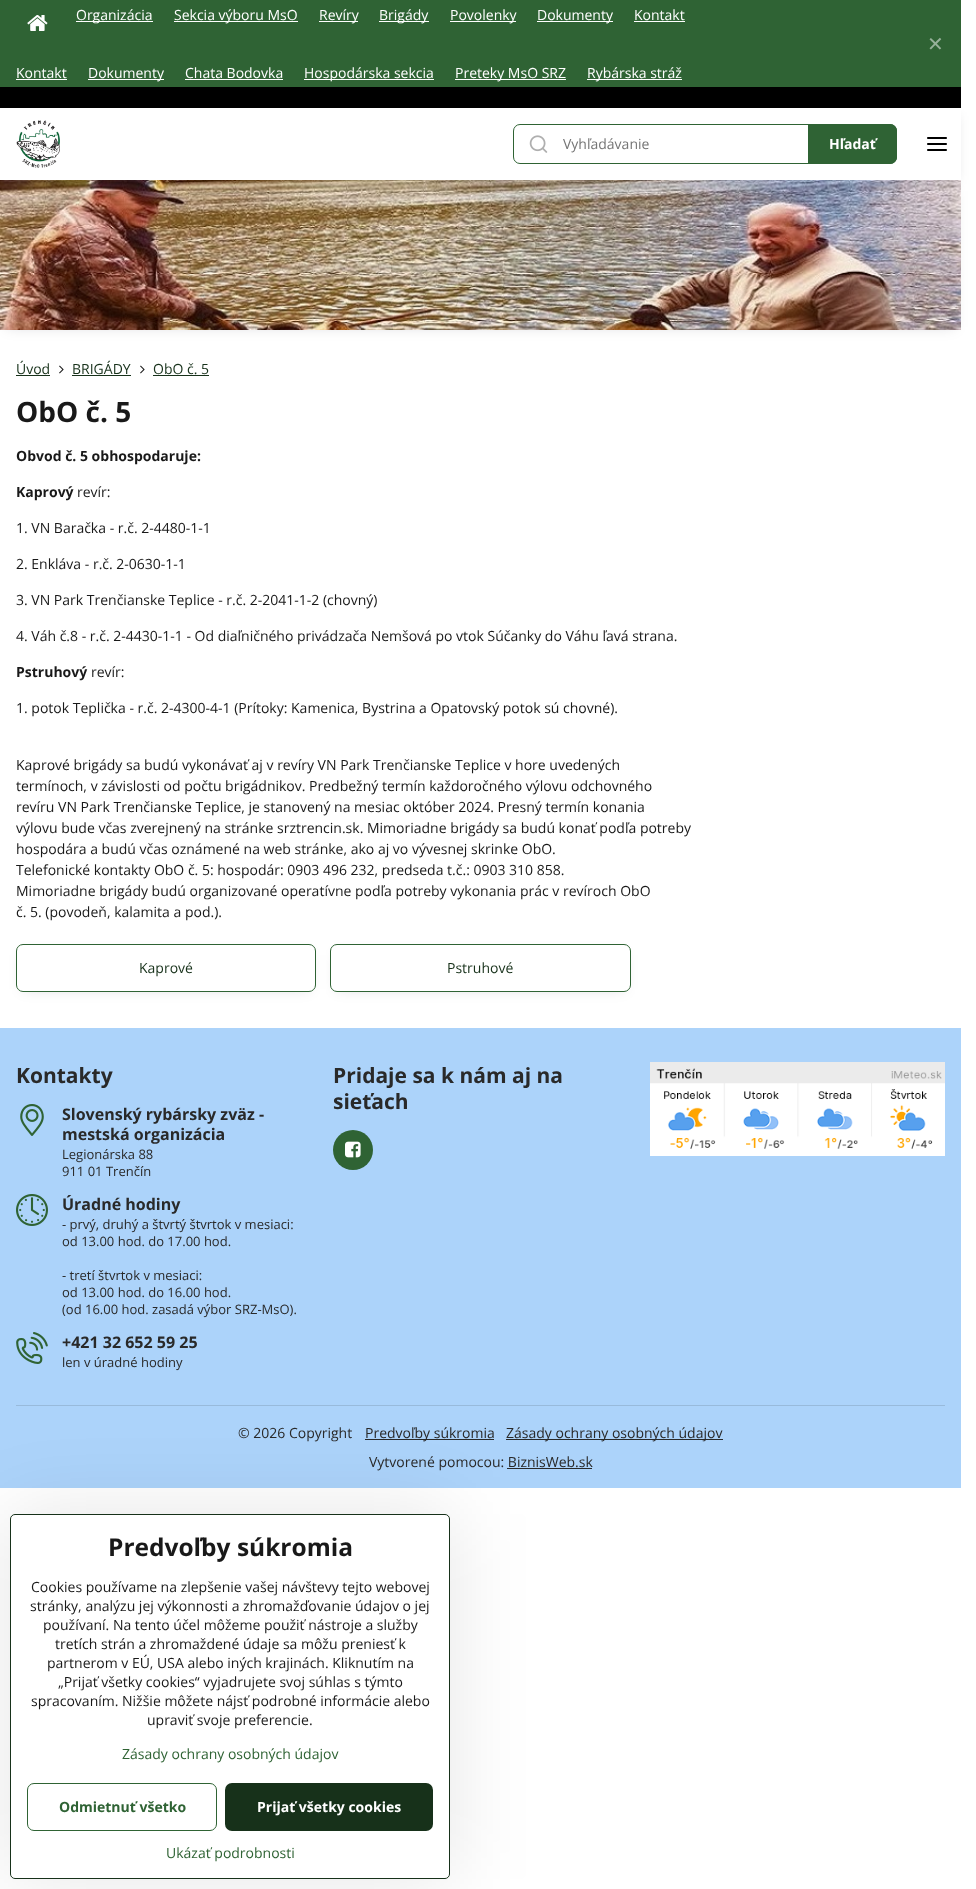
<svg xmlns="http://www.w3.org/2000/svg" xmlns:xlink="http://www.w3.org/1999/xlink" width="976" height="1889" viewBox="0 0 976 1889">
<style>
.cls-1{font:14px Open Sans;fill:#ffffff}
.cls-2{font:20px DejaVu Sans;fill:#97b19a}
.cls-3{font:14px Open Sans;fill:#757575}
.cls-4{font:bold 14px Open Sans;fill:#ffffff}
.cls-5{font:14px Open Sans;fill:#17311a}
.cls-6{font:bold 28px Open Sans;fill:#191919}
.cls-7{font:bold 14px Open Sans;fill:#191919}
.cls-8{font:14px Open Sans;fill:#191919}
.cls-9{font:bold 21px Open Sans;fill:#292929}
.cls-10{font:bold 16px Open Sans;fill:#292929}
.cls-11{font:13px Open Sans;fill:#292929}
.cls-12{font:14px Open Sans;fill:#292929}
.cls-13{font:bold 24.5px Open Sans;fill:#191919}
.cls-14{font:14px Open Sans;fill:#2f6334}
.cls-15{font:bold 14px Open Sans;fill:#2f6334}
</style>
<defs>
<clipPath id="clip1"><path d="M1 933H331V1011H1ZM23 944H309C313 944 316 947 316 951V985C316 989 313 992 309 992H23C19 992 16 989 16 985V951C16 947 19 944 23 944Z" clip-rule="evenodd"/></clipPath>
<clipPath id="clip2"><path d="M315 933H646V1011H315ZM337 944H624C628 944 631 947 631 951V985C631 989 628 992 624 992H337C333 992 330 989 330 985V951C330 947 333 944 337 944Z" clip-rule="evenodd"/></clipPath>
<clipPath id="clip3"><path d="M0 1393H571V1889H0ZM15 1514H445C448 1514 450 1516 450 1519V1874C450 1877 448 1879 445 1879H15C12 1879 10 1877 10 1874V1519C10 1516 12 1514 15 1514Z" clip-rule="evenodd"/></clipPath>
</defs>
<rect width="100%" height="100%" fill="#ffffff"/>
<rect fill="#2f6334" x="0" y="0" width="961" height="87"/>
<image xlink:href="image0.png" x="27" y="15" width="21" height="16"/>
<rect fill="#ffffff" x="76" y="21" width="77" height="1"/>
<rect fill="#ffffff" x="174" y="21" width="124" height="1"/>
<rect fill="#ffffff" x="319" y="21" width="39" height="1"/>
<rect fill="#ffffff" x="379" y="21" width="50" height="1"/>
<rect fill="#ffffff" x="450" y="21" width="66" height="1"/>
<rect fill="#ffffff" x="537" y="21" width="76" height="1"/>
<rect fill="#ffffff" x="634" y="21" width="51" height="1"/>
<rect fill="#ffffff" x="16" y="79" width="51" height="1"/>
<rect fill="#ffffff" x="88" y="79" width="76" height="1"/>
<rect fill="#ffffff" x="185" y="79" width="98" height="1"/>
<rect fill="#ffffff" x="304" y="79" width="130" height="1"/>
<rect fill="#ffffff" x="455" y="79" width="111" height="1"/>
<rect fill="#ffffff" x="587" y="79" width="95" height="1"/>
<rect fill="#000000" x="0" y="87" width="961" height="21"/>
<rect fill="#000014" fill-opacity="0.15" filter="blur(7px)" x="7" y="191" width="947" height="136"/>
<image xlink:href="image4.png" x="0" y="180" width="961" height="150"/>
<rect fill="#000014" fill-opacity="0.15" filter="blur(6px)" x="4" y="116" width="953" height="64"/>
<rect fill="#ffffff" x="0" y="108" width="961" height="72"/>
<image xlink:href="image1.png" x="16" y="120" width="44" height="48"/>
<rect fill="none" stroke="#2f6334" x="513.5" y="124.5" width="383" height="39" rx="6.5"/>
<image xlink:href="image2.png" x="529" y="135" width="19" height="18"/>
<path fill="#2f6334" d="M808 124H890C894 124 897 127 897 131V157C897 161 894 164 890 164H808Z"/>
<image xlink:href="image3.png" x="927" y="137" width="20" height="14"/>
<rect fill="#17311a" x="16" y="375" width="34" height="1"/>
<image xlink:href="image5.png" x="59" y="365" width="5" height="9"/>
<rect fill="#17311a" x="72" y="375" width="59" height="1"/>
<image xlink:href="image5.png" x="140" y="365" width="5" height="9"/>
<rect fill="#17311a" x="153" y="375" width="56" height="1"/>
<g clip-path="url(#clip1)">
<rect fill="#000014" fill-opacity="0.15" filter="blur(7px)" x="23" y="955" width="286" height="34"/>
</g>
<rect fill="none" stroke="#2f6334" x="16.5" y="944.5" width="299" height="47" rx="6.5"/>
<g clip-path="url(#clip2)">
<rect fill="#000014" fill-opacity="0.15" filter="blur(7px)" x="337" y="955" width="287" height="34"/>
</g>
<rect fill="none" stroke="#2f6334" x="330.5" y="944.5" width="300" height="47" rx="6.5"/>
<rect fill="#acd3fa" x="0" y="1028" width="961" height="460"/>
<image xlink:href="image6.png" x="20" y="1104" width="24" height="32"/>
<image xlink:href="image7.png" x="16" y="1194" width="32" height="32"/>
<image xlink:href="image8.png" x="16" y="1332" width="32" height="32"/>
<circle fill="#2f6334" cx="353" cy="1150" r="20"/>
<image xlink:href="image9.png" x="345" y="1141" width="16" height="17"/>
<image xlink:href="image10.png" x="650" y="1062" width="295" height="94"/>
<rect fill="#98badb" x="16" y="1405" width="929" height="1"/>
<rect fill="#292929" x="365" y="1439" width="129" height="1"/>
<rect fill="#292929" x="506" y="1439" width="217" height="1"/>
<rect fill="#292929" x="507" y="1468" width="85" height="1"/>
<g clip-path="url(#clip3)">
<rect fill="#000000" fill-opacity="0.1" filter="blur(40px)" x="10" y="1514" width="440" height="365" rx="5"/>
</g>
<rect fill="none" stroke="#17311a" x="10.5" y="1514.5" width="439" height="364" rx="4.5"/>
<rect fill="none" stroke="#2f6334" x="27.5" y="1783.5" width="189" height="47" rx="6.5"/>
<rect fill="#17311a" x="225" y="1783" width="208" height="48" rx="7"/>
<text class="cls-1" x="76" y="20">Organizácia</text>
<text class="cls-1" x="174" y="20">Sekcia výboru MsO</text>
<text class="cls-1" x="319" y="20">Revíry</text>
<text class="cls-1" x="379" y="20">Brigády</text>
<text class="cls-1" x="450" y="20">Povolenky</text>
<text class="cls-1" x="537" y="20">Dokumenty</text>
<text class="cls-1" x="634" y="20">Kontakt</text>
<text class="cls-1" x="16" y="78">Kontakt</text>
<text class="cls-1" x="88" y="78">Dokumenty</text>
<text class="cls-1" x="185" y="78">Chata Bodovka</text>
<text class="cls-1" x="304" y="78">Hospodárska sekcia</text>
<text class="cls-1" x="455" y="78">Preteky MsO SRZ</text>
<text class="cls-1" x="587" y="78">Rybárska stráž</text>
<text class="cls-2" x="927" y="51">✕</text>
<text class="cls-3" x="563" y="149">Vyhľadávanie</text>
<text class="cls-4" x="829" y="149">Hľadať</text>
<text class="cls-5" x="16" y="374">Úvod</text>
<text class="cls-5" x="72" y="374">BRIGÁDY</text>
<text class="cls-5" x="153" y="374">ObO č. 5</text>
<text class="cls-6" x="16" y="422">ObO č. 5</text>
<text class="cls-7" x="16" y="461">Obvod č. 5 obhospodaruje:</text>
<text class="cls-7" x="16" y="497">Kaprový</text>
<text class="cls-8" x="77" y="497">revír:</text>
<text class="cls-8" x="16" y="533">1. VN Baračka - r.č. 2-4480-1-1</text>
<text class="cls-8" x="16" y="569">2. Enkláva - r.č. 2-0630-1-1</text>
<text class="cls-8" x="16" y="605">3. VN Park Trenčianske Teplice - r.č. 2-2041-1-2 (chovný)</text>
<text class="cls-8" x="16" y="641">4. Váh č.8 - r.č. 2-4430-1-1 - Od diaľničného privádzača Nemšová po vtok Súčanky do Váhu ľavá strana.</text>
<text class="cls-7" x="16" y="677">Pstruhový</text>
<text class="cls-8" x="91" y="677">revír:</text>
<text class="cls-8" x="16" y="713">1. potok Teplička - r.č. 2-4300-4-1 (Prítoky: Kamenica, Bystrina a Opatovský potok sú chovné).</text>
<text class="cls-8"><tspan x="16" y="770">Kaprové brigády sa budú vykonávať aj v revíry VN Park Trenčianske Teplice v hore uvedených</tspan><tspan x="16" y="791">termínoch, v závislosti od počtu brigádnikov. Predbežný termín každoročného výlovu odchovného</tspan><tspan x="16" y="812">revíru VN Park Trenčianske Teplice, je stanovený na mesiac október 2024. Presný termín konania</tspan><tspan x="16" y="833">výlovu bude včas zverejnený na stránke srztrencin.sk. Mimoriadne brigády sa budú konať podľa potreby</tspan><tspan x="16" y="854">hospodára a budú včas oznámené na web stránke, ako aj vo vývesnej skrinke ObO.</tspan><tspan x="16" y="875">Telefonické kontakty ObO č. 5: hospodár: 0903 496 232, predseda t.č.: 0903 310 858.</tspan><tspan x="16" y="896">Mimoriadne brigády budú organizované operatívne podľa potreby vykonania prác v revíroch ObO</tspan><tspan x="16" y="917">č. 5. (povodeň, kalamita a pod.).</tspan></text>
<text class="cls-5" x="139" y="973">Kaprové</text>
<text class="cls-5" x="447" y="973">Pstruhové</text>
<text class="cls-9" x="16" y="1083">Kontakty</text>
<text class="cls-10"><tspan x="62" y="1120">Slovenský rybársky zväz -</tspan><tspan x="62" y="1140">mestská organizácia</tspan></text>
<text class="cls-11"><tspan x="62" y="1159">Legionárska 88</tspan><tspan x="62" y="1176">911 01 Trenčín</tspan></text>
<text class="cls-10" x="62" y="1210">Úradné hodiny</text>
<text class="cls-11"><tspan x="62" y="1229">- prvý, druhý a štvrtý štvrtok v mesiaci:</tspan><tspan x="62" y="1246">od 13.00 hod. do 17.00 hod.</tspan></text>
<text class="cls-11"><tspan x="62" y="1280">- tretí štvrtok v mesiaci:</tspan><tspan x="62" y="1297">od 13.00 hod. do 16.00 hod.</tspan><tspan x="62" y="1314">(od 16.00 hod. zasadá výbor SRZ-MsO).</tspan></text>
<text class="cls-10" x="62" y="1348">+421 32 652 59 25</text>
<text class="cls-11" x="62" y="1367">len v úradné hodiny</text>
<text class="cls-9"><tspan x="333" y="1083">Pridaje sa k nám aj na</tspan><tspan x="333" y="1109">sieťach</tspan></text>
<text class="cls-12" x="238" y="1438">© 2026 Copyright</text>
<text class="cls-12" x="365" y="1438">Predvoľby súkromia</text>
<text class="cls-12" x="506" y="1438">Zásady ochrany osobných údajov</text>
<text class="cls-12" x="369" y="1467">Vytvorené pomocou: BiznisWeb.sk</text>
<text class="cls-13" x="108" y="1556">Predvoľby súkromia</text>
<text class="cls-8" x="31" y="1592">Cookies používame na zlepšenie vašej návštevy tejto webovej</text>
<text class="cls-8" x="30" y="1611">stránky, analýzu jej výkonnosti a zhromažďovanie údajov o jej</text>
<text class="cls-8" x="43" y="1630">používaní. Na tento účel môžeme použiť nástroje a služby</text>
<text class="cls-8" x="55" y="1649">tretích strán a zhromaždené údaje sa môžu preniesť k</text>
<text class="cls-8" x="47" y="1668">partnerom v EÚ, USA alebo iných krajinách. Kliknutím na</text>
<text class="cls-8" x="58" y="1687">„Prijať všetky cookies“ vyjadrujete svoj súhlas s týmto</text>
<text class="cls-8" x="31" y="1706">spracovaním. Nižšie môžete nájsť podrobné informácie alebo</text>
<text class="cls-8" x="147" y="1725">upraviť svoje preferencie.</text>
<text class="cls-14" x="122" y="1759">Zásady ochrany osobných údajov</text>
<text class="cls-15" x="59" y="1812">Odmietnuť všetko</text>
<text class="cls-4" x="257" y="1812">Prijať všetky cookies</text>
<text class="cls-14" x="166" y="1858">Ukázať podrobnosti</text>
</svg>
